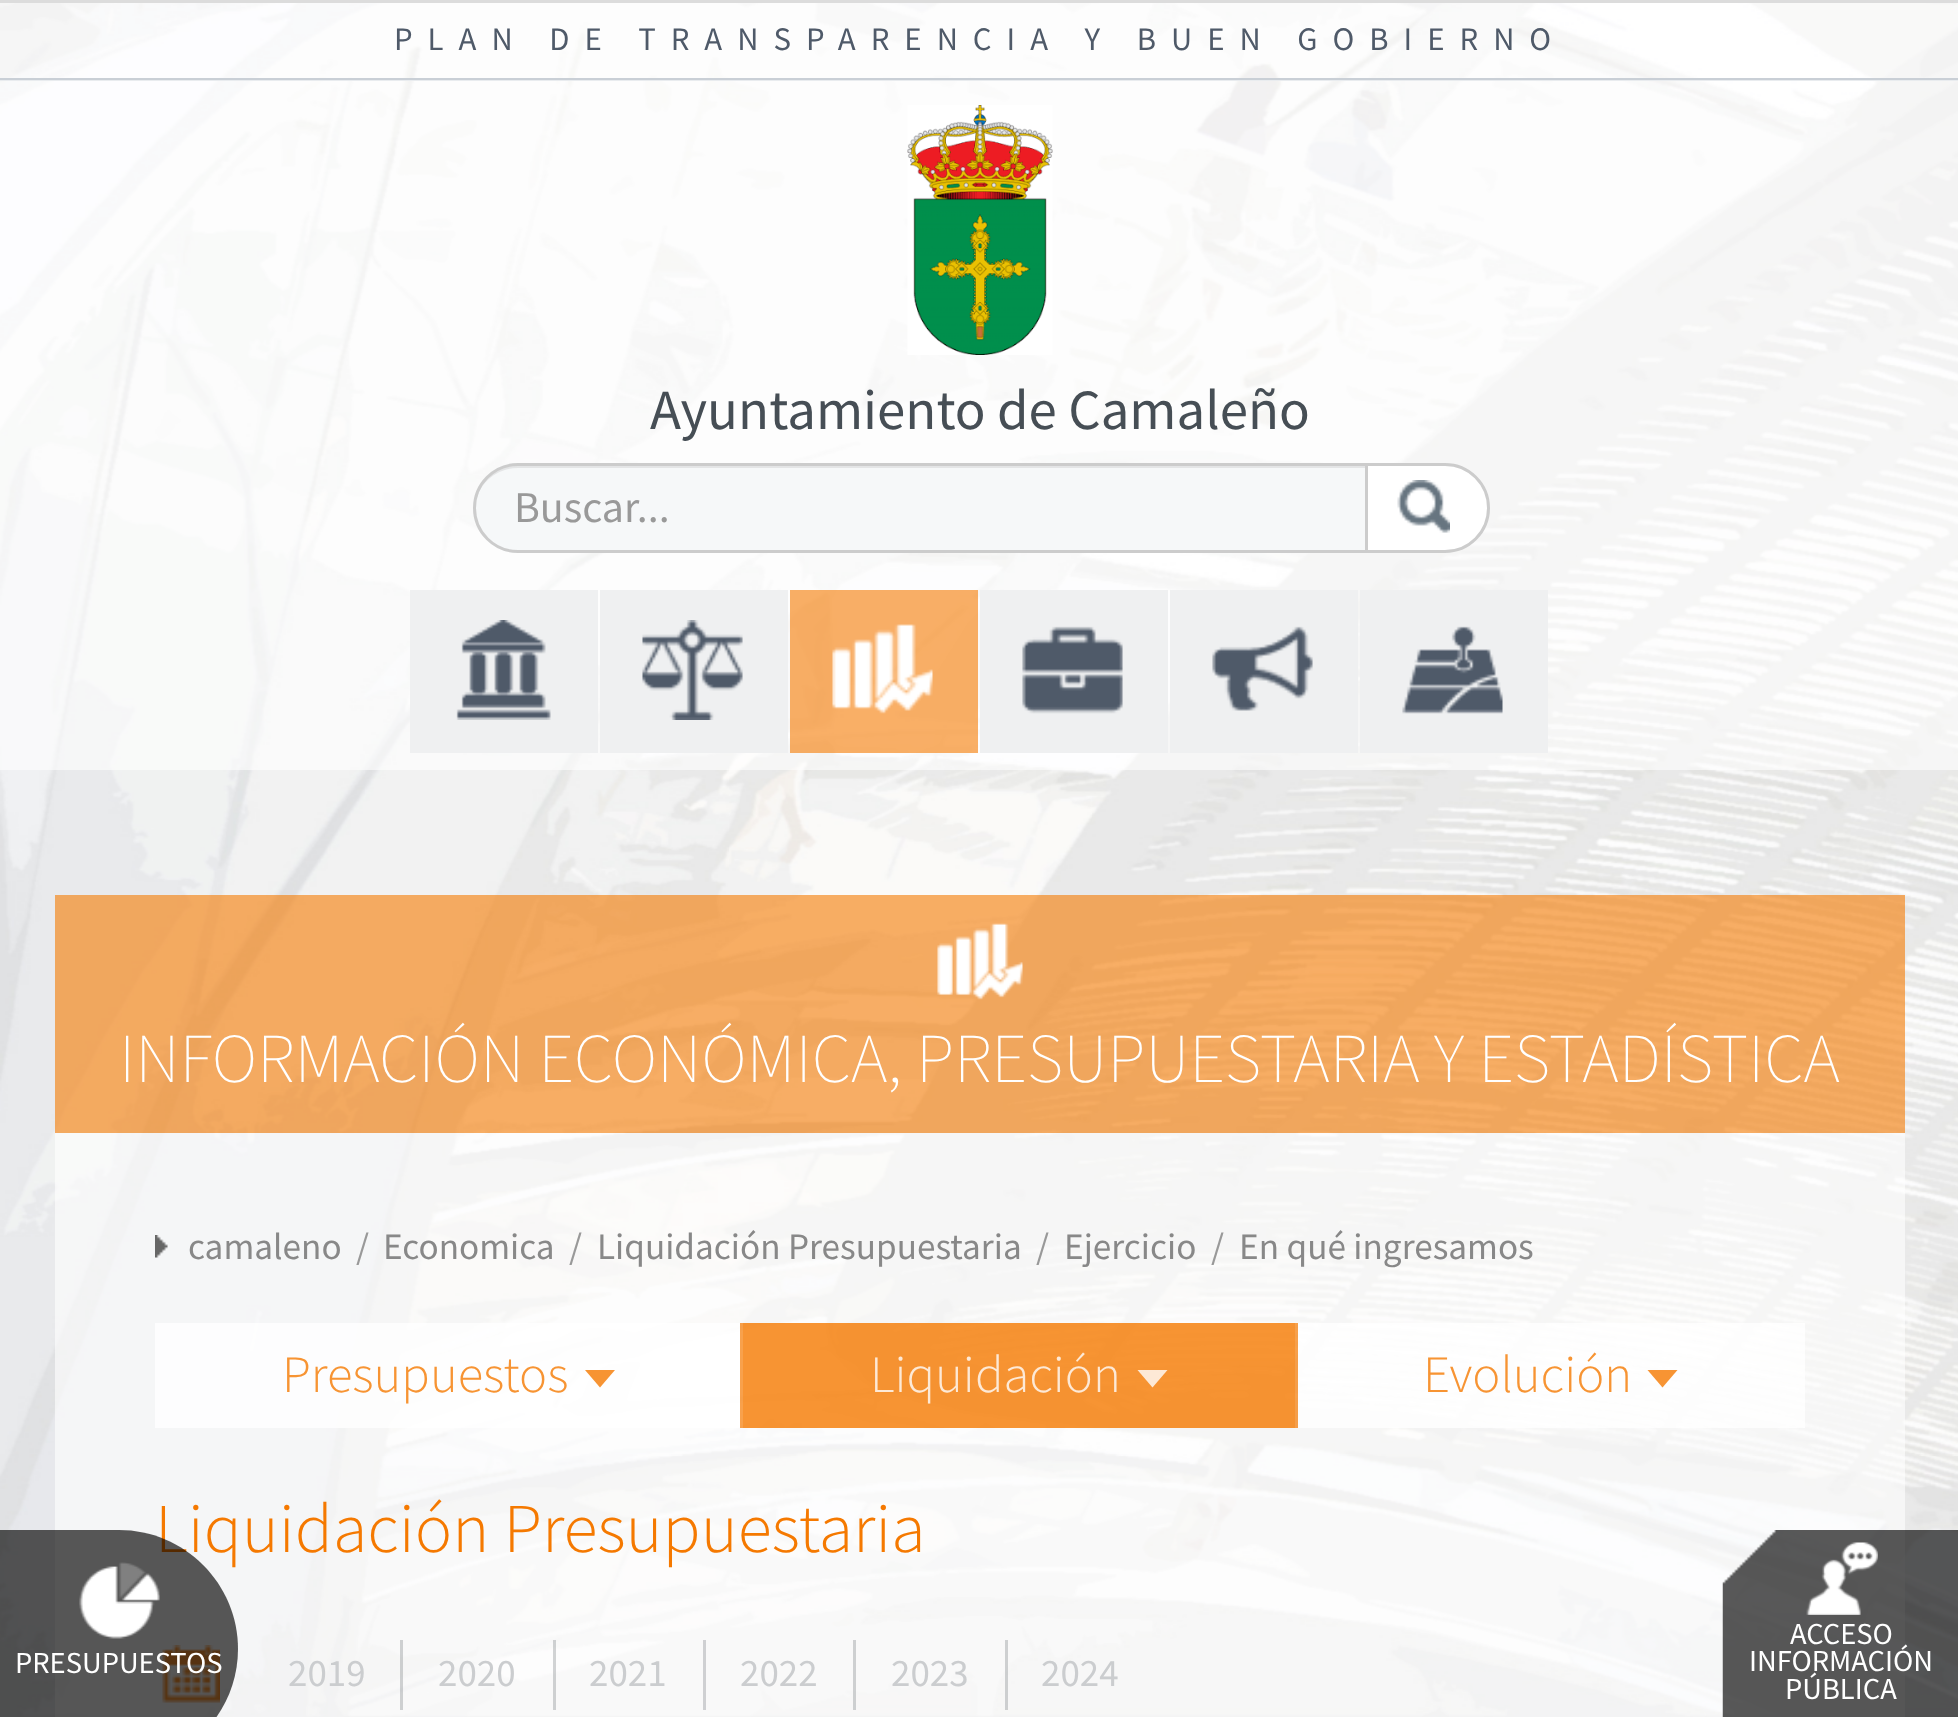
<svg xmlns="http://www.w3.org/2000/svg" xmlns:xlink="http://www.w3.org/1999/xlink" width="1958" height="1717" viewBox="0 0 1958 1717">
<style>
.cls-1{font:32.8px Source Sans Pro;letter-spacing:15px;fill:#4f5a69}
.cls-2{font:56.9px Source Sans Pro;fill:#464e55}
.cls-3{font:44px Source Sans Pro;fill:#999999}
.cls-4{font:200 70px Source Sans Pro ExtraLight;fill:#ffffff}
.cls-5{font:37.25px Source Sans Pro;fill:#888888}
.cls-6{font:37.25px Source Sans Pro;fill:#999999}
.cls-7{font:300 52.5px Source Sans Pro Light;fill:#f79433}
.cls-8{font:300 52.5px Source Sans Pro Light;fill:#fde9d6}
.cls-9{font:300 70px Source Sans Pro Light;fill:#f57900}
.cls-10{font:39px Source Sans Pro;fill:#cbcdcf}
.cls-11{font:30.5px Source Sans Pro;fill:#ffffff}
</style>
<rect width="100%" height="100%" fill="#ffffff"/>
<image xlink:href="image0.png" x="0" y="3" width="1958" height="1714"/>
<rect fill="#dcdcdc" x="0" y="0" width="1958" height="3"/>
<rect fill="#ffffff" fill-opacity="0.6" x="0" y="3" width="1958" height="75"/>
<rect fill="#c9cfd6" x="0" y="78" width="1958" height="3"/>
<rect fill="#ffffff" fill-opacity="0.6" x="0" y="80" width="1958" height="510"/>
<image xlink:href="image1.png" x="907" y="105" width="146" height="250"/>
<path fill="#f6f8f9" d="M518 463H1368V553H518C493 553 473 533 473 508C473 483 493 463 518 463Z"/>
<path fill="#e4e5e6" d="M518 468H1365V465H518C494 465 474 485 475 509C476 486 494 468 518 468Z"/>
<path fill="none" stroke="#cccccc" stroke-width="3" d="M518 464.5H1366.5V551.5H518C494 551.5 474.5 532 474.5 508C474.5 484 494 464.5 518 464.5Z"/>
<path fill="#ffffff" stroke="#cccccc" stroke-width="3" d="M1366.5 464.5H1445C1469 464.5 1488.5 484 1488.5 508C1488.5 532 1469 551.5 1445 551.5H1366.5Z"/>
<image xlink:href="image2.png" x="1397" y="480" width="53" height="53"/>
<rect fill="#ffffff" fill-opacity="0.6" x="0" y="590" width="1958" height="180"/>
<rect fill="#eff0f1" x="410" y="590" width="188" height="163"/>
<image xlink:href="image3.png" x="456" y="620" width="95" height="100"/>
<rect fill="#eff0f1" x="600" y="590" width="188" height="163"/>
<image xlink:href="image4.png" x="642" y="620" width="101" height="100"/>
<rect fill="#f57900" fill-opacity="0.6" x="790" y="590" width="188" height="163"/>
<image xlink:href="image5.png" x="832" y="624" width="101" height="90"/>
<rect fill="#eff0f1" x="980" y="590" width="188" height="163"/>
<image xlink:href="image6.png" x="1022" y="626" width="101" height="88"/>
<rect fill="#eff0f1" x="1170" y="590" width="188" height="163"/>
<image xlink:href="image7.png" x="1212" y="626" width="101" height="85"/>
<rect fill="#eff0f1" x="1360" y="590" width="188" height="163"/>
<image xlink:href="image8.png" x="1402" y="626" width="101" height="88"/>
<rect fill="#f57900" fill-opacity="0.6" x="55" y="895" width="1850" height="238"/>
<image xlink:href="image9.png" x="937" y="923" width="86" height="77"/>
<rect fill="#ffffff" fill-opacity="0.6" x="55" y="1133" width="1850" height="584"/>
<image xlink:href="image10.png" x="155" y="1235" width="13" height="23"/>
<rect fill="#f57900" fill-opacity="0.7" x="740" y="1323" width="3" height="105"/>
<rect fill="#ffffff" fill-opacity="0.8" x="155" y="1323" width="585" height="105"/>
<path fill="#f79433" d="M585 1370H615L600 1387.5Z"/>
<rect fill="#f57900" fill-opacity="0.7" x="1295" y="1323" width="3" height="105"/>
<rect fill="#f57900" fill-opacity="0.8" x="743" y="1323" width="552" height="105"/>
<path fill="#fde9d6" d="M1137.5 1370H1167.5L1152.5 1387.5Z"/>
<rect fill="#ffffff" fill-opacity="0.8" x="1298" y="1323" width="507" height="105"/>
<path fill="#f79433" d="M1647.5 1370H1677.5L1662.5 1387.5Z"/>
<image xlink:href="image11.png" x="162" y="1645" width="58" height="58"/>
<rect fill="#474f55" fill-opacity="0.24" x="400" y="1640" width="3" height="70"/>
<rect fill="#474f55" fill-opacity="0.24" x="553" y="1640" width="3" height="70"/>
<rect fill="#cfd0d2" x="703" y="1640" width="3" height="70"/>
<rect fill="#474f55" fill-opacity="0.24" x="853" y="1640" width="3" height="70"/>
<rect fill="#474f55" fill-opacity="0.24" x="1005" y="1640" width="3" height="70"/>
<image xlink:href="image13.png" x="1722" y="1530" width="236" height="187"/>
<image xlink:href="image14.png" x="1806" y="1542" width="72" height="73"/>
<text class="cls-1" x="394" y="50">PLAN DE TRANSPARENCIA Y BUEN GOBIERNO</text>
<text class="cls-2" x="650" y="429">Ayuntamiento de Camaleño</text>
<text class="cls-3" x="514" y="522">Buscar...</text>
<text class="cls-4" x="119" y="1082">INFORMACIÓN ECONÓMICA, PRESUPUESTARIA Y ESTADÍSTICA</text>
<text class="cls-5" x="188" y="1259">camaleno</text>
<text class="cls-6" x="356" y="1259">/</text>
<text class="cls-5" x="383" y="1259">Economica</text>
<text class="cls-6" x="569" y="1259">/</text>
<text class="cls-5" x="597" y="1259">Liquidación Presupuestaria</text>
<text class="cls-6" x="1036" y="1259">/</text>
<text class="cls-5" x="1064" y="1259">Ejercicio</text>
<text class="cls-6" x="1211" y="1259">/</text>
<text class="cls-5" x="1239" y="1259">En qué ingresamos</text>
<text class="cls-7" x="282" y="1392">Presupuestos</text>
<text class="cls-8" x="870" y="1392">Liquidación</text>
<text class="cls-7" x="1423" y="1392">Evolución</text>
<text class="cls-9" x="155" y="1552">Liquidación Presupuestaria</text>
<text class="cls-10" x="288" y="1686">2019</text>
<text class="cls-10" x="438" y="1686">2020</text>
<text class="cls-10" x="589" y="1686">2021</text>
<text class="cls-10" x="740" y="1686">2022</text>
<text class="cls-10" x="891" y="1686">2023</text>
<text class="cls-10" x="1041" y="1686">2024</text>
<path fill="#000000" fill-opacity="0.65" d="M0 1530H119C184.5 1530 238 1583.5 238 1649C238 1714.5 184.5 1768 119 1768H0Z"/>
<image xlink:href="image12.png" x="79" y="1562" width="81" height="77"/>
<text class="cls-11" x="15" y="1673">PRESUPUESTOS</text>
<text class="cls-11" x="1790" y="1644">ACCESO</text>
<text class="cls-11" x="1749" y="1671">INFORMACIÓN</text>
<text class="cls-11" x="1785" y="1699">PÚBLICA</text>
</svg>
